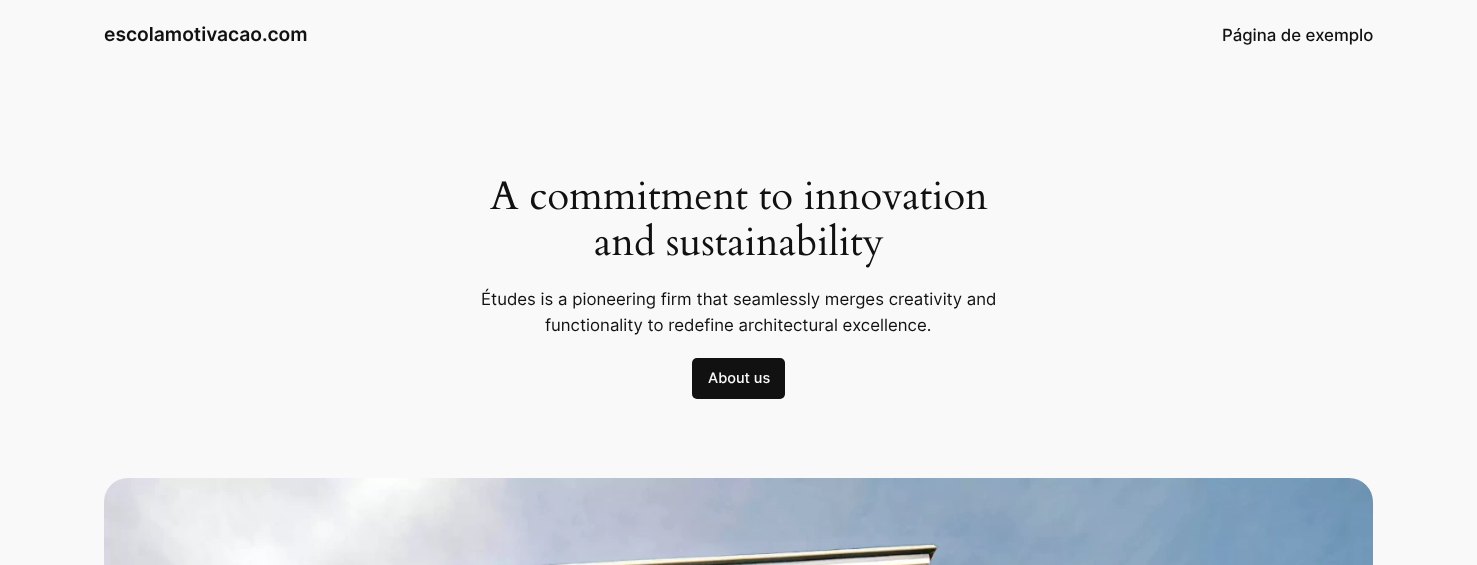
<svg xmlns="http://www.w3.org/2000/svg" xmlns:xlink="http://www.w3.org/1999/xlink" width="1477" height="565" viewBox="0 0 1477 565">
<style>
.cls-1{font:600 19.25px Inter;fill:#111111}
.cls-2{font:500 16.8px Inter;fill:#111111}
.cls-3{font:16.8px Inter;fill:#111111}
.cls-4{font:500 14.5px Inter;fill:#f9f9f9}
</style>
<rect width="100%" height="100%" fill="#f9f9f9"/>
<image xlink:href="image0.png" x="490" y="181" width="498" height="29"/>
<image xlink:href="image1.png" x="595" y="222" width="289" height="46"/>
<rect fill="#111111" x="692" y="358" width="93" height="41" rx="5"/>
<image xlink:href="image2.png" x="104" y="478" width="1269" height="87"/>
<text class="cls-1" x="104" y="41">escolamotivacao.com</text>
<text class="cls-2" x="1222" y="41">Página de exemplo</text>
<text class="cls-3" x="481" y="305">Études is a pioneering firm that seamlessly merges creativity and</text>
<text class="cls-3" x="545" y="331">functionality to redefine architectural excellence.</text>
<text class="cls-4" x="708" y="383">About us</text>
</svg>
